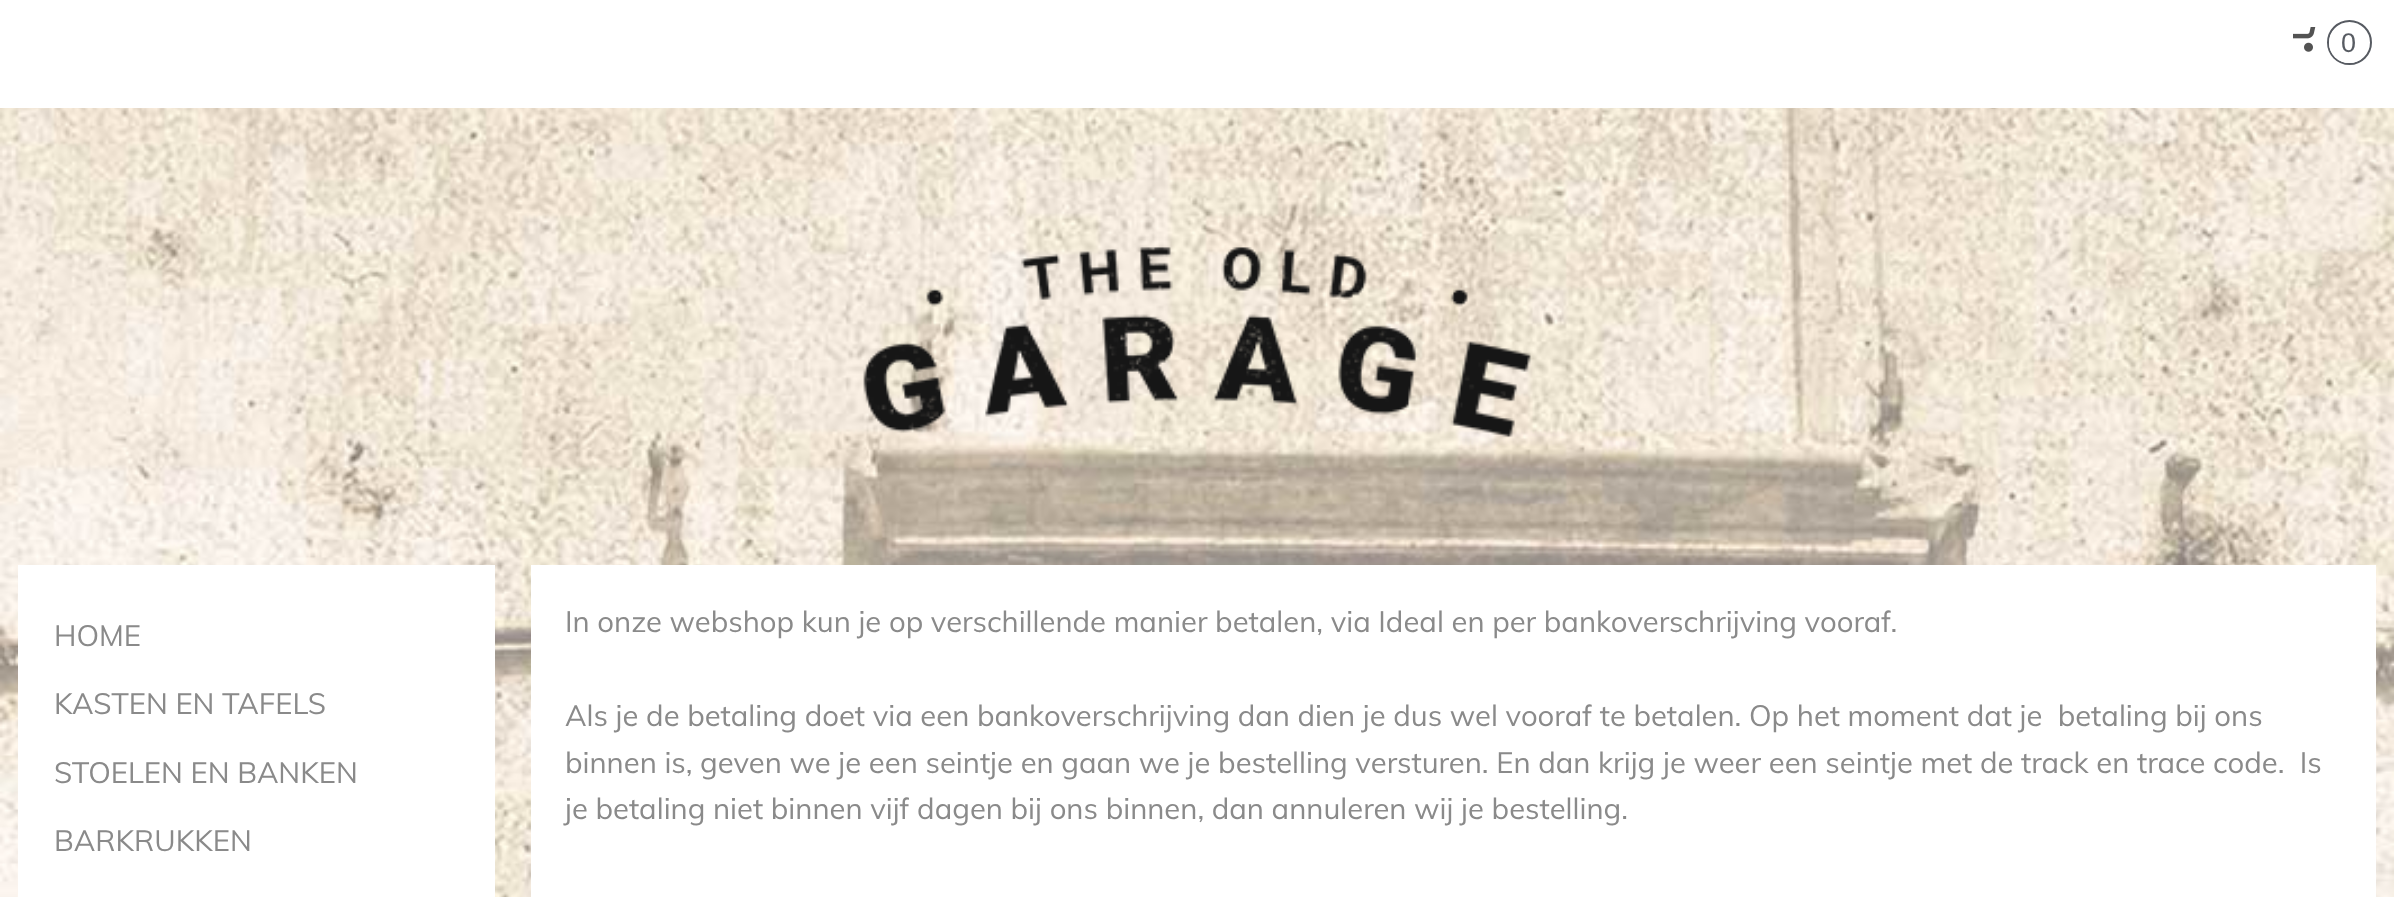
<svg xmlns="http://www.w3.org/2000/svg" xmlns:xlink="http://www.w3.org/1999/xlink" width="2394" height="897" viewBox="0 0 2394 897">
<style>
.cls-1{font:27px Liberation Sans;fill:#575b62}
.cls-2{font:29.25px Muli;fill:#8a8a8a}
</style>
<rect width="100%" height="100%" fill="#ffffff"/>
<image xlink:href="image0.png" x="0" y="108" width="2394" height="789"/>
<image xlink:href="image1.png" x="2293" y="27" width="23" height="25"/>
<circle fill="none" stroke="#575b62" stroke-width="2" cx="2349.5" cy="42.5" r="21.5"/>
<circle fill="#ffffff" cx="2349" cy="43" r="20"/>
<image xlink:href="image2.png" x="863" y="247" width="668" height="191"/>
<rect fill="#ffffff" x="18" y="565" width="477" height="332"/>
<rect fill="#ffffff" x="531" y="565" width="1845" height="332"/>
<text class="cls-1" x="2341" y="52">0</text>
<text class="cls-2" x="54" y="646">HOME</text>
<text class="cls-2" x="54" y="714">KASTEN EN TAFELS</text>
<text class="cls-2" x="54" y="783">STOELEN EN BANKEN</text>
<text class="cls-2" x="54" y="851">BARKRUKKEN</text>
<text class="cls-2" x="565" y="632">In onze webshop kun je op verschillende manier betalen, via Ideal en per bankoverschrijving vooraf.</text>
<text class="cls-2" xml:space="preserve"><tspan x="565" y="726">Als je de betaling doet via een bankoverschrijving dan dien je dus wel vooraf te betalen. Op het moment dat je  betaling bij ons</tspan><tspan x="565" y="773">binnen is, geven we je een seintje en gaan we je bestelling versturen. En dan krijg je weer een seintje met de track en trace code.  Is</tspan><tspan x="565" y="819">je betaling niet binnen vijf dagen bij ons binnen, dan annuleren wij je bestelling.</tspan></text>
</svg>
